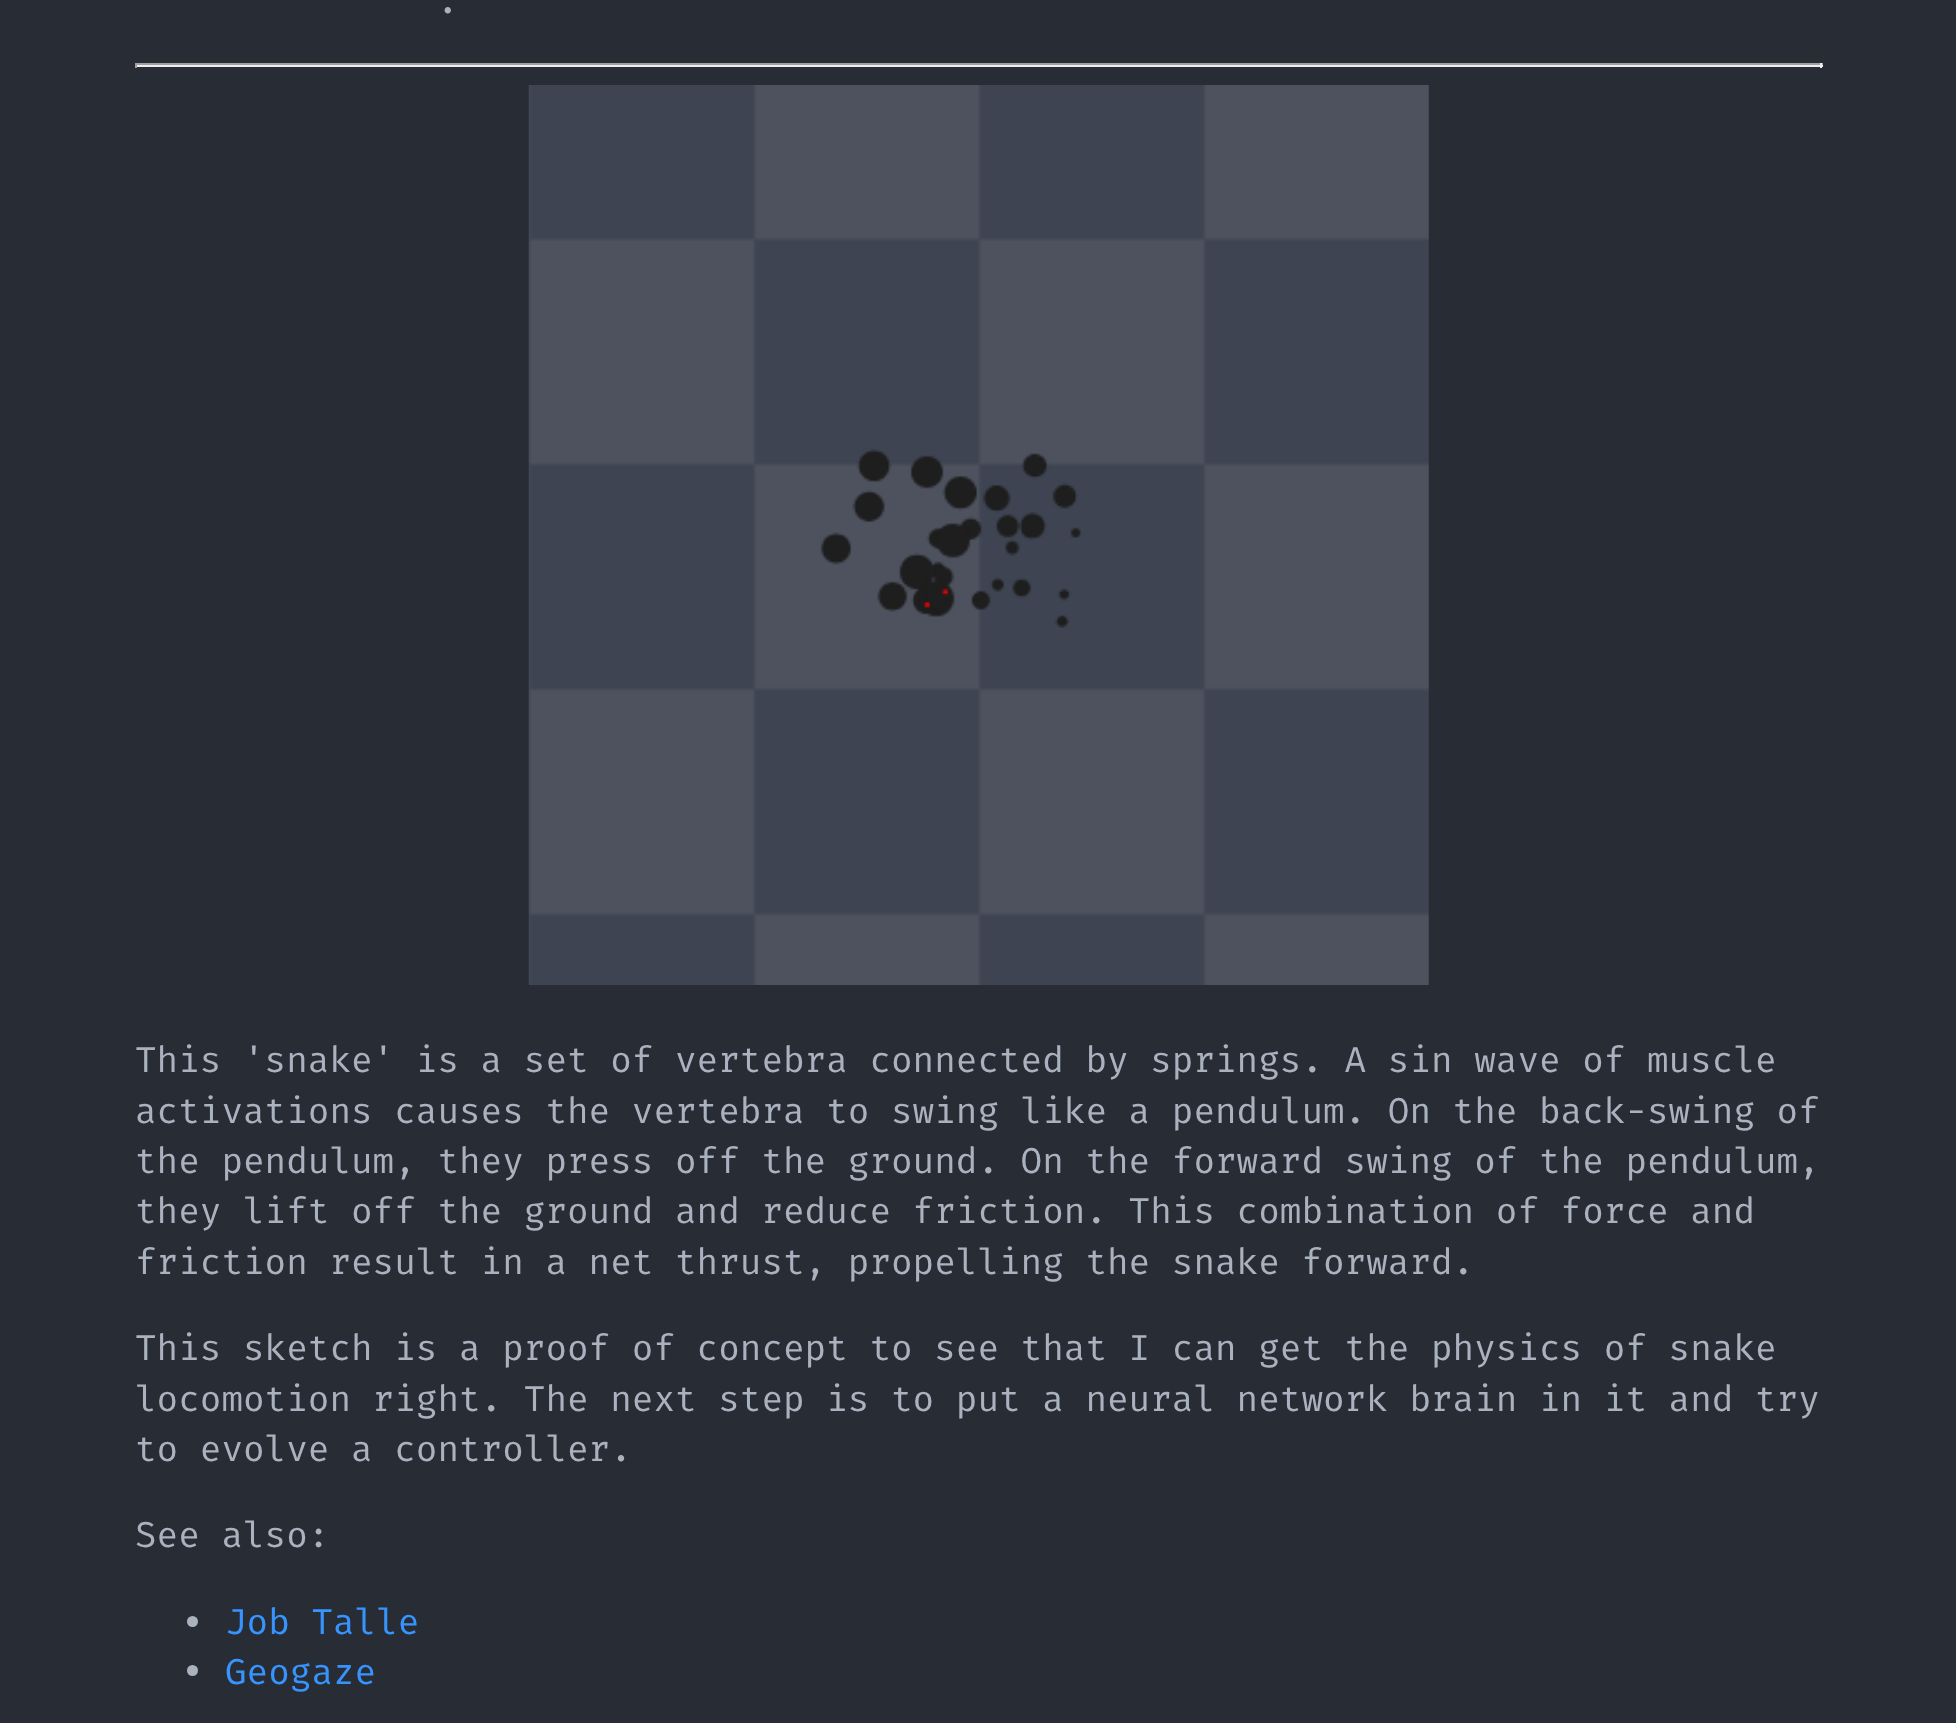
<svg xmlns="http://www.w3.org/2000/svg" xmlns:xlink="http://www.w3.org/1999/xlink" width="1956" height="1723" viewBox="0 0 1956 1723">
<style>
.cls-1{font:36px Fira Mono;fill:#abb2bf}
.cls-2{font:36px Fira Mono;fill:#3794ff}
</style>
<rect width="100%" height="100%" fill="#282c34"/>
<rect fill="#9f9f9f" x="135" y="63" width="1688" height="2"/>
<rect fill="#eeeeee" x="1820" y="63" width="2" height="5"/>
<rect fill="#eeeeee" x="135" y="65" width="1688" height="2"/>
<rect fill="#9f9f9f" x="135" y="63" width="2" height="5"/>
<image xlink:href="image0.png" x="528" y="85" width="901" height="900"/>
<circle fill="#abb2bf" cx="192.5" cy="1621.5" r="5.5"/>
<circle fill="#abb2bf" cx="192.5" cy="1670.5" r="5.5"/>
<text class="cls-1" x="437" y="13">.</text>
<text class="cls-1"><tspan x="135" y="1072">This 'snake' is a set of vertebra connected by springs. A sin wave of muscle</tspan><tspan x="135" y="1123">activations causes the vertebra to swing like a pendulum. On the back-swing of</tspan><tspan x="135" y="1173">the pendulum, they press off the ground. On the forward swing of the pendulum,</tspan><tspan x="135" y="1223">they lift off the ground and reduce friction. This combination of force and</tspan><tspan x="135" y="1274">friction result in a net thrust, propelling the snake forward.</tspan></text>
<text class="cls-1"><tspan x="135" y="1360">This sketch is a proof of concept to see that I can get the physics of snake</tspan><tspan x="135" y="1411">locomotion right. The next step is to put a neural network brain in it and try</tspan><tspan x="135" y="1461">to evolve a controller.</tspan></text>
<text class="cls-1" x="135" y="1547">See also:</text>
<text class="cls-2"><tspan x="225" y="1634">Job Talle</tspan><tspan x="225" y="1684">Geogaze</tspan></text>
</svg>
